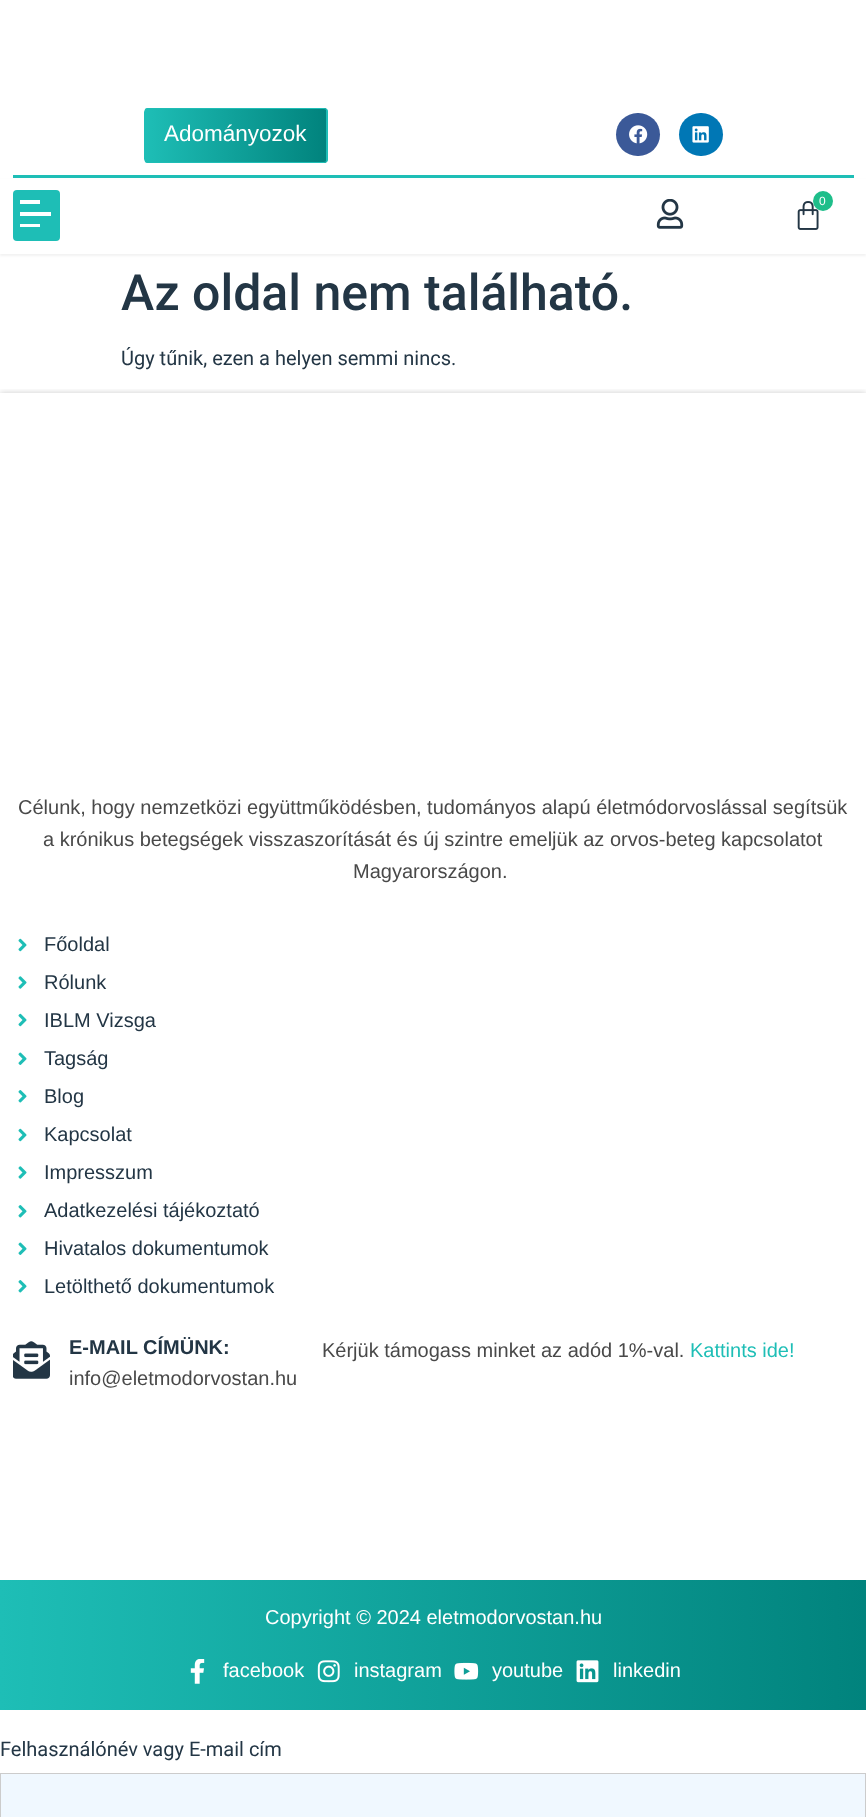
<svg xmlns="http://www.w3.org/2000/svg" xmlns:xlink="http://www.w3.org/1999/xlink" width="866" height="1817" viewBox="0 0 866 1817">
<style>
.cls-1{font:22.5px Liberation Sans;fill:#ffffff}
.cls-2{font:12px Liberation Sans;fill:#ffffff}
.cls-3{font:500 50px Roboto;fill:#233645}
.cls-4{font:20px Roboto;fill:#233645}
.cls-5{font:20px Liberation Sans;fill:#494949}
.cls-6{font:20px Liberation Sans;fill:#233645}
.cls-7{font:bold 20px Liberation Sans;fill:#233645}
.cls-8{font:20px Liberation Sans;fill:#1ebeb6}
.cls-9{font:20px Liberation Sans;fill:#ffffff}
</style>
<defs>
<clipPath id="clip1"><rect x="144" y="108" width="184" height="55" rx="4"/></clipPath>
<linearGradient id="g1" gradientUnits="userSpaceOnUse" x1="145" y1="135" x2="326" y2="135"><stop offset="0" stop-color="#1ebeb6"/><stop offset="1" stop-color="#01837d"/></linearGradient>
<linearGradient id="g2" gradientUnits="userSpaceOnUse" x1="326" y1="135" x2="508" y2="135"><stop offset="0" stop-color="#1ebeb6"/><stop offset="1" stop-color="#01837d"/></linearGradient>
<clipPath id="clip2"><rect x="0" y="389" width="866" height="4"/></clipPath>
<linearGradient id="g3" gradientUnits="userSpaceOnUse" x1="0" y1="1645" x2="866" y2="1645"><stop offset="0" stop-color="#1ebeb6"/><stop offset="1" stop-color="#01837d"/></linearGradient>
</defs>
<rect width="100%" height="100%" fill="#ffffff"/>
<rect fill="#1ebeb6" x="13" y="175" width="841" height="3"/>
<g clip-path="url(#clip1)">
<rect fill="url(#g1)" x="145" y="108" width="181" height="55"/>
<rect fill="url(#g2)" x="326" y="108" width="2" height="55"/>
</g>
<rect fill="none" stroke="#1ebeb6" x="144.5" y="108.5" width="183" height="54" rx="3.5"/>
<rect fill="#3b5998" x="616" y="113" width="44" height="43" rx="21.5"/>
<image xlink:href="image0.png" x="629" y="125" width="19" height="19"/>
<rect fill="#0077b5" x="679" y="113" width="44" height="43" rx="21.5"/>
<image xlink:href="image1.png" x="692" y="126" width="17" height="17"/>
<rect fill="#000000" fill-opacity="0.05" filter="blur(1px)" x="0" y="180" width="866" height="76"/>
<rect fill="#ffffff" x="0" y="179" width="866" height="75"/>
<rect fill="#1ebeb6" x="13" y="190" width="47" height="51" rx="4"/>
<rect fill="#ffffff" x="20" y="200" width="20" height="4"/>
<rect fill="#ffffff" x="20" y="212" width="31" height="4"/>
<rect fill="#ffffff" x="20" y="224" width="20" height="3"/>
<image xlink:href="image2.png" x="656" y="199" width="28" height="30"/>
<image xlink:href="image3.png" x="797" y="201" width="22" height="29"/>
<circle fill="#1ebe8a" cx="823" cy="201" r="10"/>
<g clip-path="url(#clip2)">
<rect fill="#000000" fill-opacity="0.2" filter="blur(3px)" x="0" y="393" width="866" height="1187"/>
</g>
<image xlink:href="image4.png" x="18" y="938" width="9" height="14"/>
<image xlink:href="image5.png" x="18" y="976" width="9" height="13"/>
<image xlink:href="image4.png" x="18" y="1013" width="9" height="14"/>
<image xlink:href="image6.png" x="18" y="1052" width="9" height="13"/>
<image xlink:href="image7.png" x="18" y="1090" width="9" height="13"/>
<image xlink:href="image4.png" x="18" y="1128" width="9" height="14"/>
<image xlink:href="image5.png" x="18" y="1166" width="9" height="13"/>
<image xlink:href="image7.png" x="18" y="1205" width="9" height="13"/>
<image xlink:href="image6.png" x="18" y="1242" width="9" height="13"/>
<image xlink:href="image7.png" x="18" y="1280" width="9" height="13"/>
<image xlink:href="image8.png" x="13" y="1341" width="37" height="38"/>
<rect fill="url(#g3)" x="0" y="1580" width="866" height="130"/>
<image xlink:href="image9.png" x="190" y="1659" width="15" height="25"/>
<image xlink:href="image10.png" x="317" y="1660" width="23" height="23"/>
<image xlink:href="image11.png" x="454" y="1662" width="25" height="18"/>
<image xlink:href="image12.png" x="576" y="1660" width="23" height="23"/>
<rect fill="#f0f8ff" stroke="#cccccc" x="0.5" y="1773.5" width="865" height="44"/>
<text class="cls-1" x="164" y="141">Adományozok</text>
<text class="cls-2" x="819" y="205">0</text>
<text class="cls-3" x="121" y="310">Az oldal nem található.</text>
<text class="cls-4" x="121" y="365">Úgy tűnik, ezen a helyen semmi nincs.</text>
<text class="cls-5" x="18" y="814">Célunk, hogy nemzetközi együttműködésben, tudományos alapú életmódorvoslással segítsük</text>
<text class="cls-5" x="43" y="846">a krónikus betegségek visszaszorítását és új szintre emeljük az orvos-beteg kapcsolatot</text>
<text class="cls-5" x="353" y="878">Magyarországon.</text>
<text class="cls-6"><tspan x="44" y="951">Főoldal</tspan><tspan x="44" y="989">Rólunk</tspan><tspan x="44" y="1027">IBLM Vizsga</tspan><tspan x="44" y="1065">Tagság</tspan><tspan x="44" y="1103">Blog</tspan><tspan x="44" y="1141">Kapcsolat</tspan><tspan x="44" y="1179">Impresszum</tspan><tspan x="44" y="1217">Adatkezelési tájékoztató</tspan><tspan x="44" y="1255">Hivatalos dokumentumok</tspan><tspan x="44" y="1293">Letölthető dokumentumok</tspan></text>
<text class="cls-7" x="69" y="1354">E-MAIL CÍMÜNK:</text>
<text class="cls-5" x="69" y="1385">info@eletmodorvostan.hu</text>
<text class="cls-5" x="322" y="1357">Kérjük támogass minket az adód 1%-val.</text>
<text class="cls-8" x="690" y="1357">Kattints ide!</text>
<text class="cls-9" x="265" y="1624">Copyright © 2024 eletmodorvostan.hu</text>
<text class="cls-9" x="223" y="1677">facebook</text>
<text class="cls-9" x="354" y="1677">instagram</text>
<text class="cls-9" x="492" y="1677">youtube</text>
<text class="cls-9" x="613" y="1677">linkedin</text>
<text class="cls-4" x="0" y="1756">Felhasználónév vagy E-mail cím</text>
</svg>
